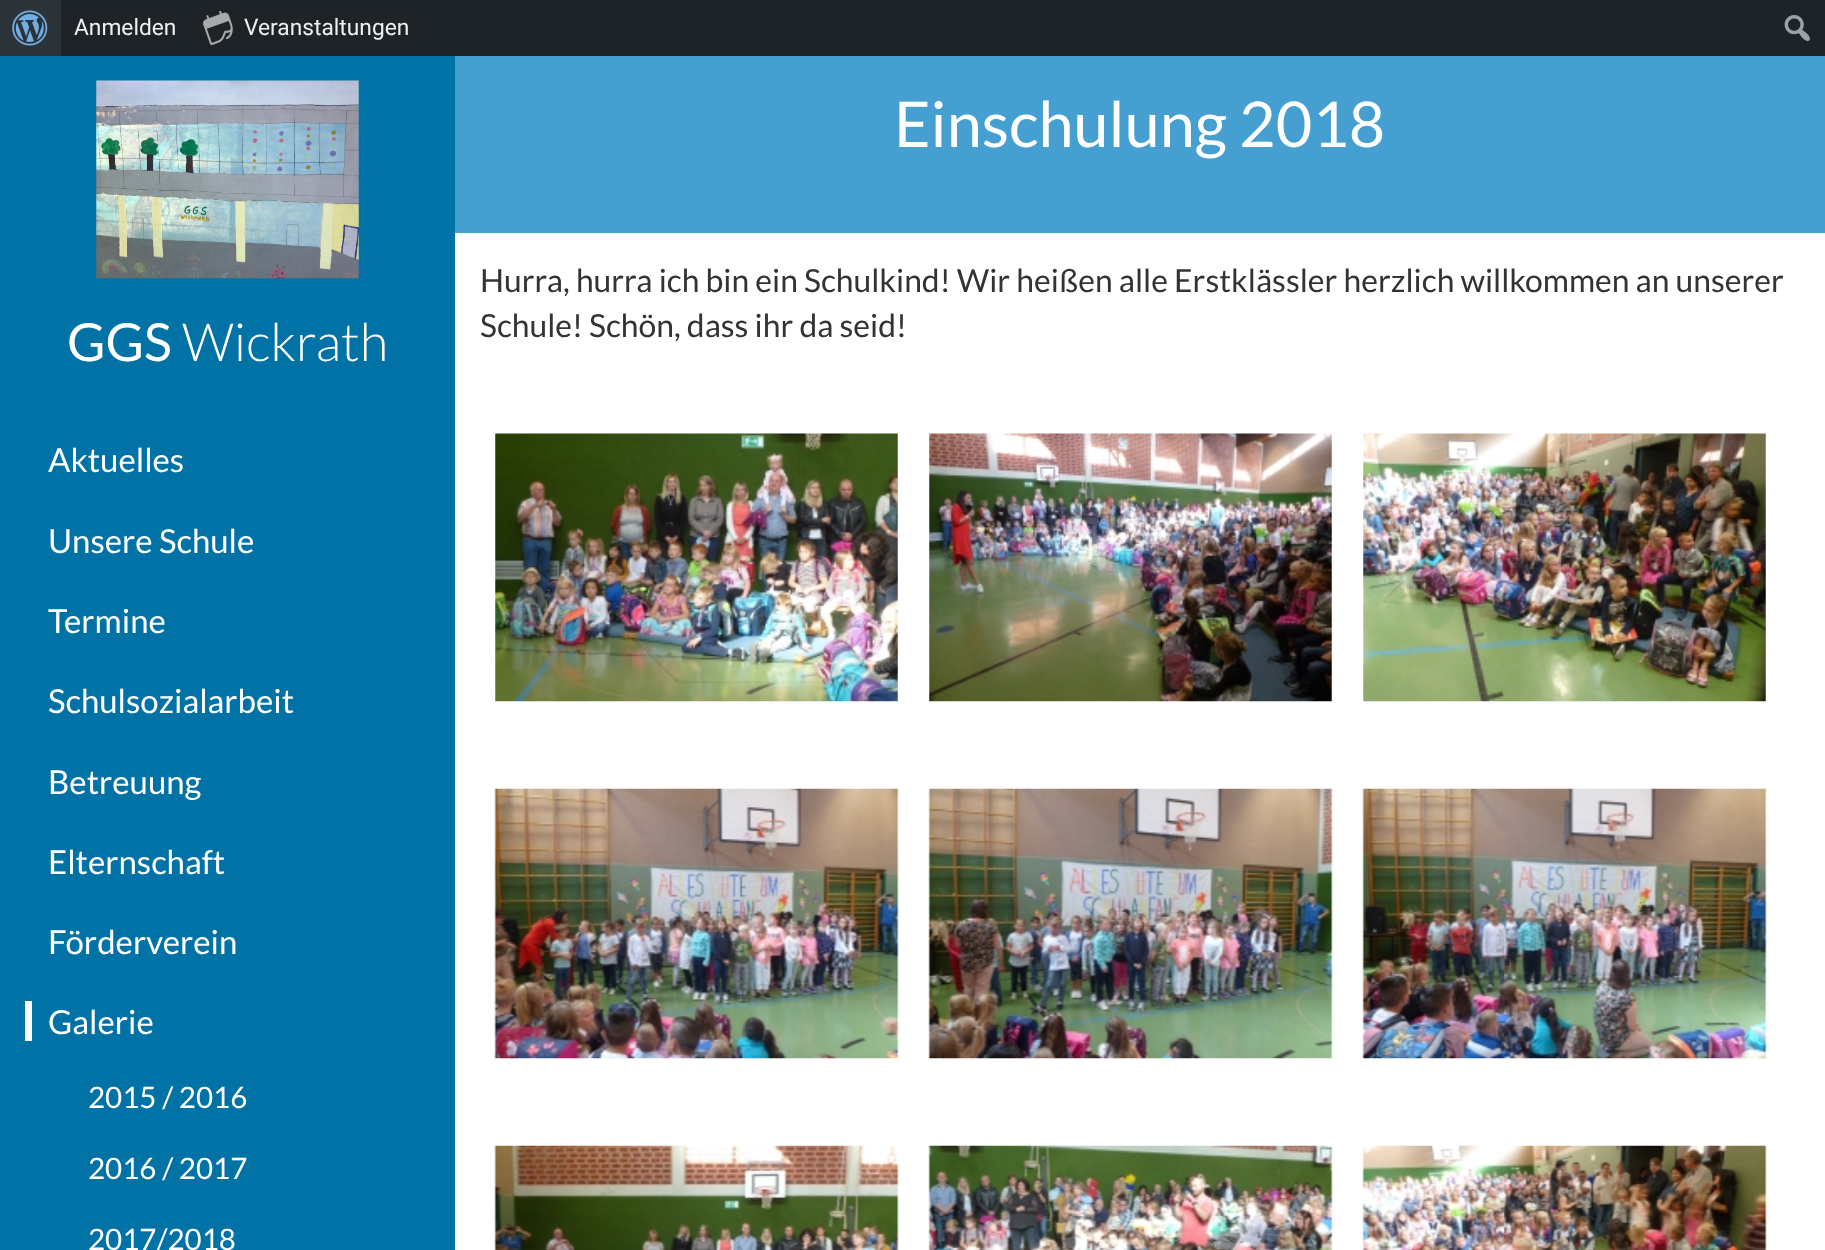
<svg xmlns="http://www.w3.org/2000/svg" xmlns:xlink="http://www.w3.org/1999/xlink" width="1825" height="1250" viewBox="0 0 1825 1250">
<style>
.cls-1{font:22.75px Roboto;fill:#f0f0f1}
.cls-2{font:63px Lato;fill:#ffffff}
.cls-3{font:31.85px Lato;fill:#333333}
.cls-4{font:52.5px Lato;fill:#ffffff}
.cls-5{font:300 52.5px Lato;fill:#ffffff}
.cls-6{font:33px Lato;fill:#ffffff}
.cls-7{font:29.5px Lato;fill:#ffffff}
</style>
<rect width="100%" height="100%" fill="#459fd1"/>
<rect fill="#1d2327" x="61" y="0" width="1764" height="56"/>
<rect fill="#2c3338" x="0" y="0" width="61" height="56"/>
<image xlink:href="image0.png" x="12" y="10" width="36" height="36"/>
<image xlink:href="image1.png" x="203" y="11" width="30" height="35"/>
<image xlink:href="image2.png" x="1784" y="15" width="26" height="26"/>
<rect fill="#ffffff" x="455" y="233" width="1370" height="1017"/>
<image xlink:href="image3.png" x="495" y="433" width="403" height="269"/>
<image xlink:href="image4.png" x="929" y="433" width="403" height="269"/>
<image xlink:href="image5.png" x="1363" y="433" width="403" height="269"/>
<image xlink:href="image6.png" x="494" y="788" width="405" height="271"/>
<image xlink:href="image7.png" x="928" y="788" width="405" height="271"/>
<image xlink:href="image8.png" x="1362" y="788" width="405" height="271"/>
<image xlink:href="image9.png" x="494" y="1145" width="405" height="105"/>
<image xlink:href="image10.png" x="928" y="1145" width="405" height="105"/>
<image xlink:href="image11.png" x="1362" y="1145" width="405" height="105"/>
<rect fill="#0072a6" x="0" y="56" width="455" height="1194"/>
<image xlink:href="image12.png" x="96" y="80" width="263" height="199"/>
<rect fill="#ffffff" x="25" y="1001" width="7" height="40"/>
<text class="cls-1" x="74" y="35">Anmelden</text>
<text class="cls-1" x="244" y="35">Veranstaltungen</text>
<text class="cls-2" x="894" y="147">Einschulung 2018</text>
<text class="cls-3"><tspan x="480" y="292">Hurra, hurra ich bin ein Schulkind! Wir heißen alle Erstklässler herzlich willkommen an unserer</tspan><tspan x="480" y="337">Schule! Schön, dass ihr da seid!</tspan></text>
<text class="cls-4" x="67" y="361">GGS</text>
<text class="cls-5" x="182" y="361">Wickrath</text>
<text class="cls-6" x="48" y="472">Aktuelles</text>
<text class="cls-6" x="48" y="553">Unsere Schule</text>
<text class="cls-6" x="48" y="633">Termine</text>
<text class="cls-6" x="48" y="713">Schulsozialarbeit</text>
<text class="cls-6" x="48" y="794">Betreuung</text>
<text class="cls-6" x="48" y="874">Elternschaft</text>
<text class="cls-6" x="48" y="954">Förderverein</text>
<text class="cls-6" x="48" y="1034">Galerie</text>
<text class="cls-7" x="88" y="1108">2015 / 2016</text>
<text class="cls-7" x="88" y="1179">2016 / 2017</text>
<text class="cls-7" x="88" y="1250">2017/2018</text>
</svg>
